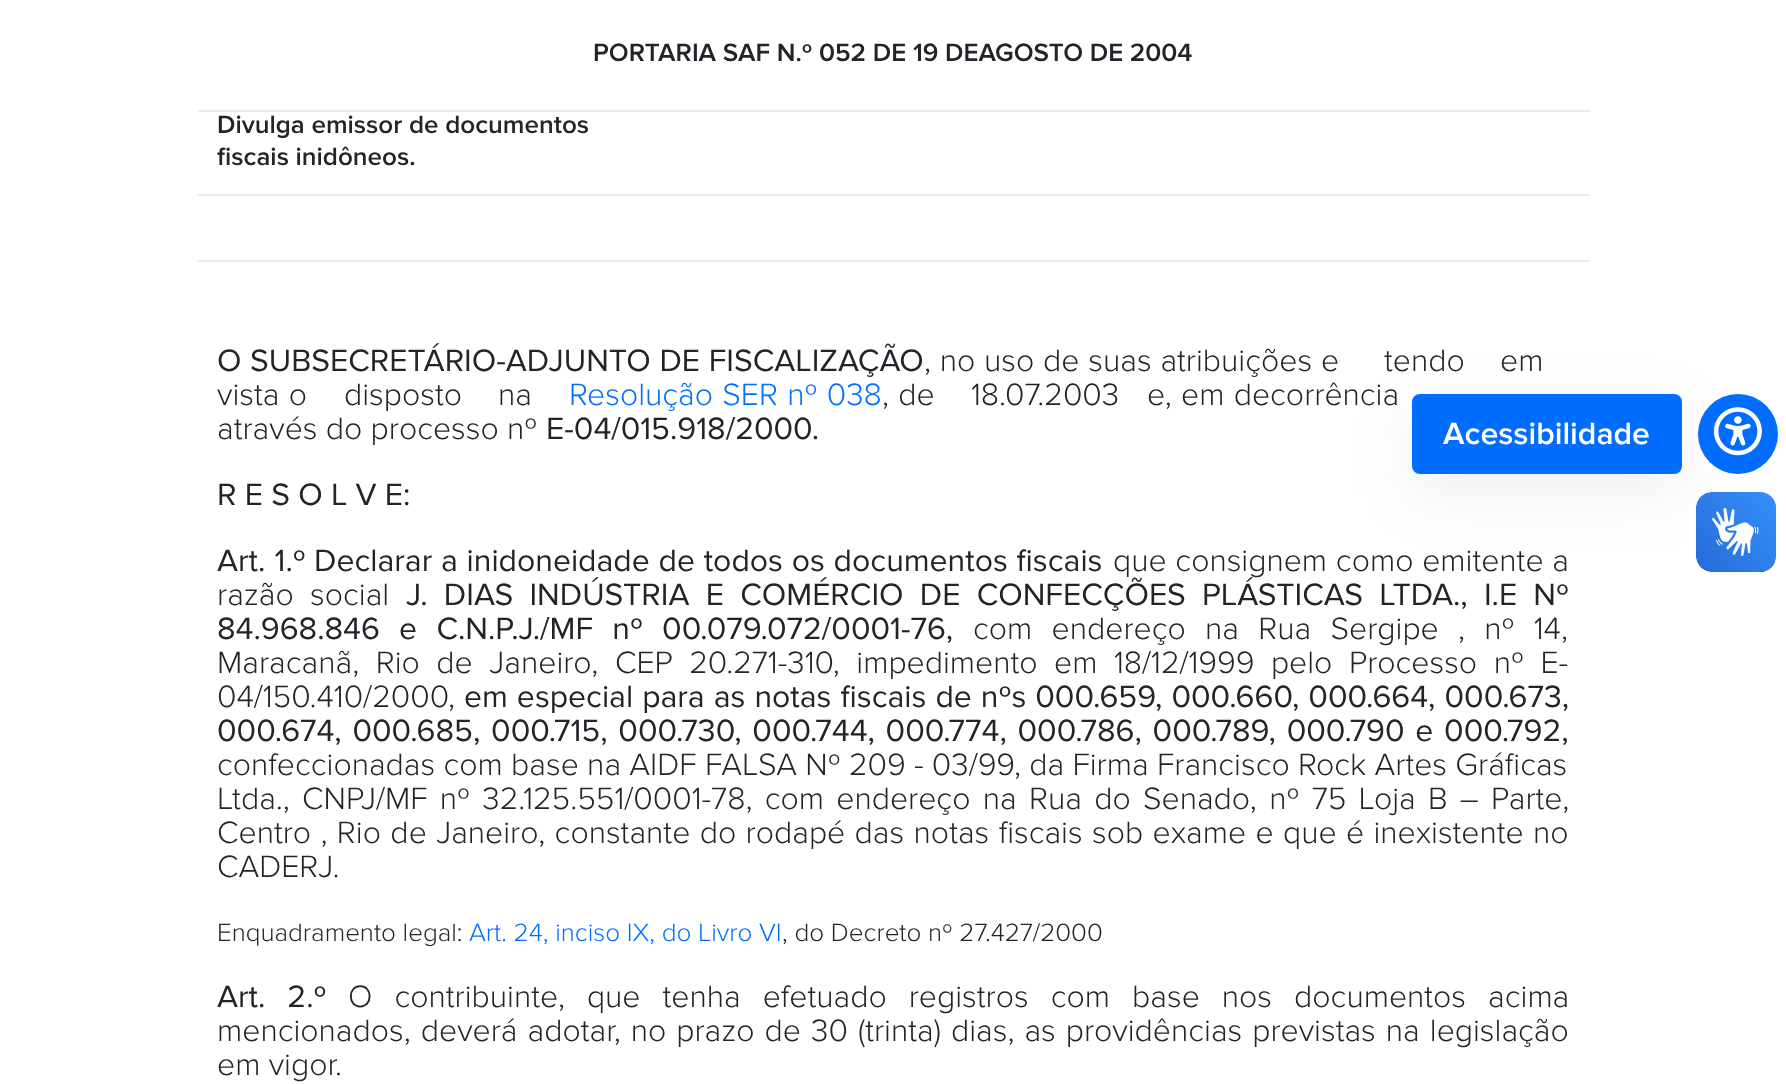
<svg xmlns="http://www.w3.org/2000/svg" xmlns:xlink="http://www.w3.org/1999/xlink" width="1786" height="1084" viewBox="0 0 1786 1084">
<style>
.cls-1{font:600 26px Proxima Nova;fill:#212529}
.cls-2{font:32px Proxima Nova;fill:#212529}
.cls-3{font:300 32px Proxima Nova;fill:#212529}
.cls-4{font:300 32px Proxima Nova;fill:#006dff}
.cls-5{font:300 26px Proxima Nova;fill:#212529}
.cls-6{font:300 26px Proxima Nova;fill:#006dff}
.cls-7{font:600 32px Proxima Nova;fill:#ffffff}
</style>
<rect width="100%" height="100%" fill="#ffffff"/>
<rect fill="#e9ecef" x="198" y="110" width="1392" height="2"/>
<rect fill="#e9ecef" x="198" y="194" width="1392" height="2"/>
<rect fill="#e9ecef" x="198" y="260" width="1392" height="2"/>
<circle fill="#006dff" cx="1738" cy="434" r="40"/>
<image xlink:href="image0.png" x="1713" y="407" width="49" height="49"/>
<rect fill="#666666" fill-opacity="0.1" filter="blur(30px)" x="1412" y="414" width="270" height="80" rx="8"/>
<rect fill="#006dff" x="1412" y="394" width="270" height="80" rx="8"/>
<image xlink:href="image1.png" x="1696" y="492" width="80" height="80"/>
<image xlink:href="image2.png" x="1696" y="492" width="80" height="80"/>
<text class="cls-1" x="593" y="61">PORTARIA SAF N.º 052 DE 19 DEAGOSTO DE 2004</text>
<text class="cls-1"><tspan x="217" y="133">Divulga emissor de documentos</tspan><tspan x="217" y="165">fiscais inidôneos.</tspan></text>
<text class="cls-2" x="217" y="371">O</text>
<text class="cls-2" x="250" y="371" word-spacing="0.5">SUBSECRETÁRIO-ADJUNTO DE FISCALIZAÇÃO</text>
<text class="cls-3" x="924" y="371" word-spacing="0.5">, no uso de suas atribuições e</text>
<text class="cls-3" x="1384" y="371">tendo</text>
<text class="cls-3" x="1500" y="371">em</text>
<text class="cls-3" x="217" y="405" word-spacing="1">vista o</text>
<text class="cls-3" x="344" y="405">disposto</text>
<text class="cls-3" x="498" y="405">na</text>
<text class="cls-4" x="569" y="405" word-spacing="1">Resolução SER nº 038</text>
<text class="cls-3" x="882" y="405" word-spacing="1">, de</text>
<text class="cls-3" x="971" y="405">18.07.2003</text>
<text class="cls-3" x="1147" y="405">e,</text>
<text class="cls-3" x="1181" y="405" word-spacing="1">em decorrência</text>
<text class="cls-3" x="217" y="439">através do processo nº</text>
<text class="cls-2" x="546" y="439">E-04/015.918/2000.</text>
<text class="cls-2" x="217" y="505">R E S O L V E:</text>
<text class="cls-2" x="217" y="571" word-spacing="1">Art. 1.º</text>
<text class="cls-2" x="314" y="571" word-spacing="0.5">Declarar a inidoneidade de todos os documentos fiscais</text>
<text class="cls-3" x="1113" y="571" word-spacing="0.5">que consignem como emitente a</text>
<text class="cls-3" x="217" y="605" word-spacing="8">razão social</text>
<text class="cls-2" x="406" y="605" word-spacing="8">J. DIAS INDÚSTRIA E COMÉRCIO DE CONFECÇÕES PLÁSTICAS LTDA., I.E Nº</text>
<text class="cls-2" x="217" y="639" word-spacing="11">84.968.846 e C.N.P.J./MF nº 00.079.072/0001-76,</text>
<text class="cls-3" x="973" y="639" word-spacing="11">com endereço na Rua Sergipe , nº 14,</text>
<text class="cls-3"><tspan x="217" y="673" word-spacing="8.25">Maracanã, Rio de Janeiro, CEP 20.271-310, impedimento em 18/12/1999 pelo Processo nº E-</tspan><tspan x="217" y="707">04/150.410/2000,</tspan></text>
<text class="cls-2" x="464" y="707" word-spacing="0.75">em especial para as notas fiscais de nºs 000.659, 000.660, 000.664, 000.673,</text>
<text class="cls-2" x="217" y="741" word-spacing="2.5">000.674, 000.685, 000.715, 000.730, 000.744, 000.774, 000.786, 000.789, 000.790 e 000.792,</text>
<text class="cls-3"><tspan x="217" y="775">confeccionadas com base na AIDF FALSA Nº 209 - 03/99, da Firma Francisco Rock Artes Gráficas</tspan><tspan x="217" y="809" word-spacing="4">Ltda., CNPJ/MF nº 32.125.551/0001-78, com endereço na Rua do Senado, nº 75 Loja B – Parte,</tspan><tspan x="217" y="843" word-spacing="1.1">Centro , Rio de Janeiro, constante do rodapé das notas fiscais sob exame e que é inexistente no</tspan><tspan x="217" y="877">CADERJ.</tspan></text>
<text class="cls-5" x="217" y="941">Enquadramento legal:</text>
<text class="cls-6" x="469" y="941">Art. 24, inciso IX, do Livro VI</text>
<text class="cls-5" x="782" y="941">, do Decreto nº 27.427/2000</text>
<text class="cls-2" x="217" y="1007" word-spacing="13.75">Art. 2.º</text>
<text class="cls-3" x="348" y="1007" word-spacing="13.75">O contribuinte, que tenha efetuado registros com base nos documentos acima</text>
<text class="cls-3"><tspan x="217" y="1041" word-spacing="1.75">mencionados, deverá adotar, no prazo de 30 (trinta) dias, as providências previstas na legislação</tspan><tspan x="217" y="1075">em vigor.</tspan></text>
<text class="cls-7" x="1443" y="444">Acessibilidade</text>
</svg>
